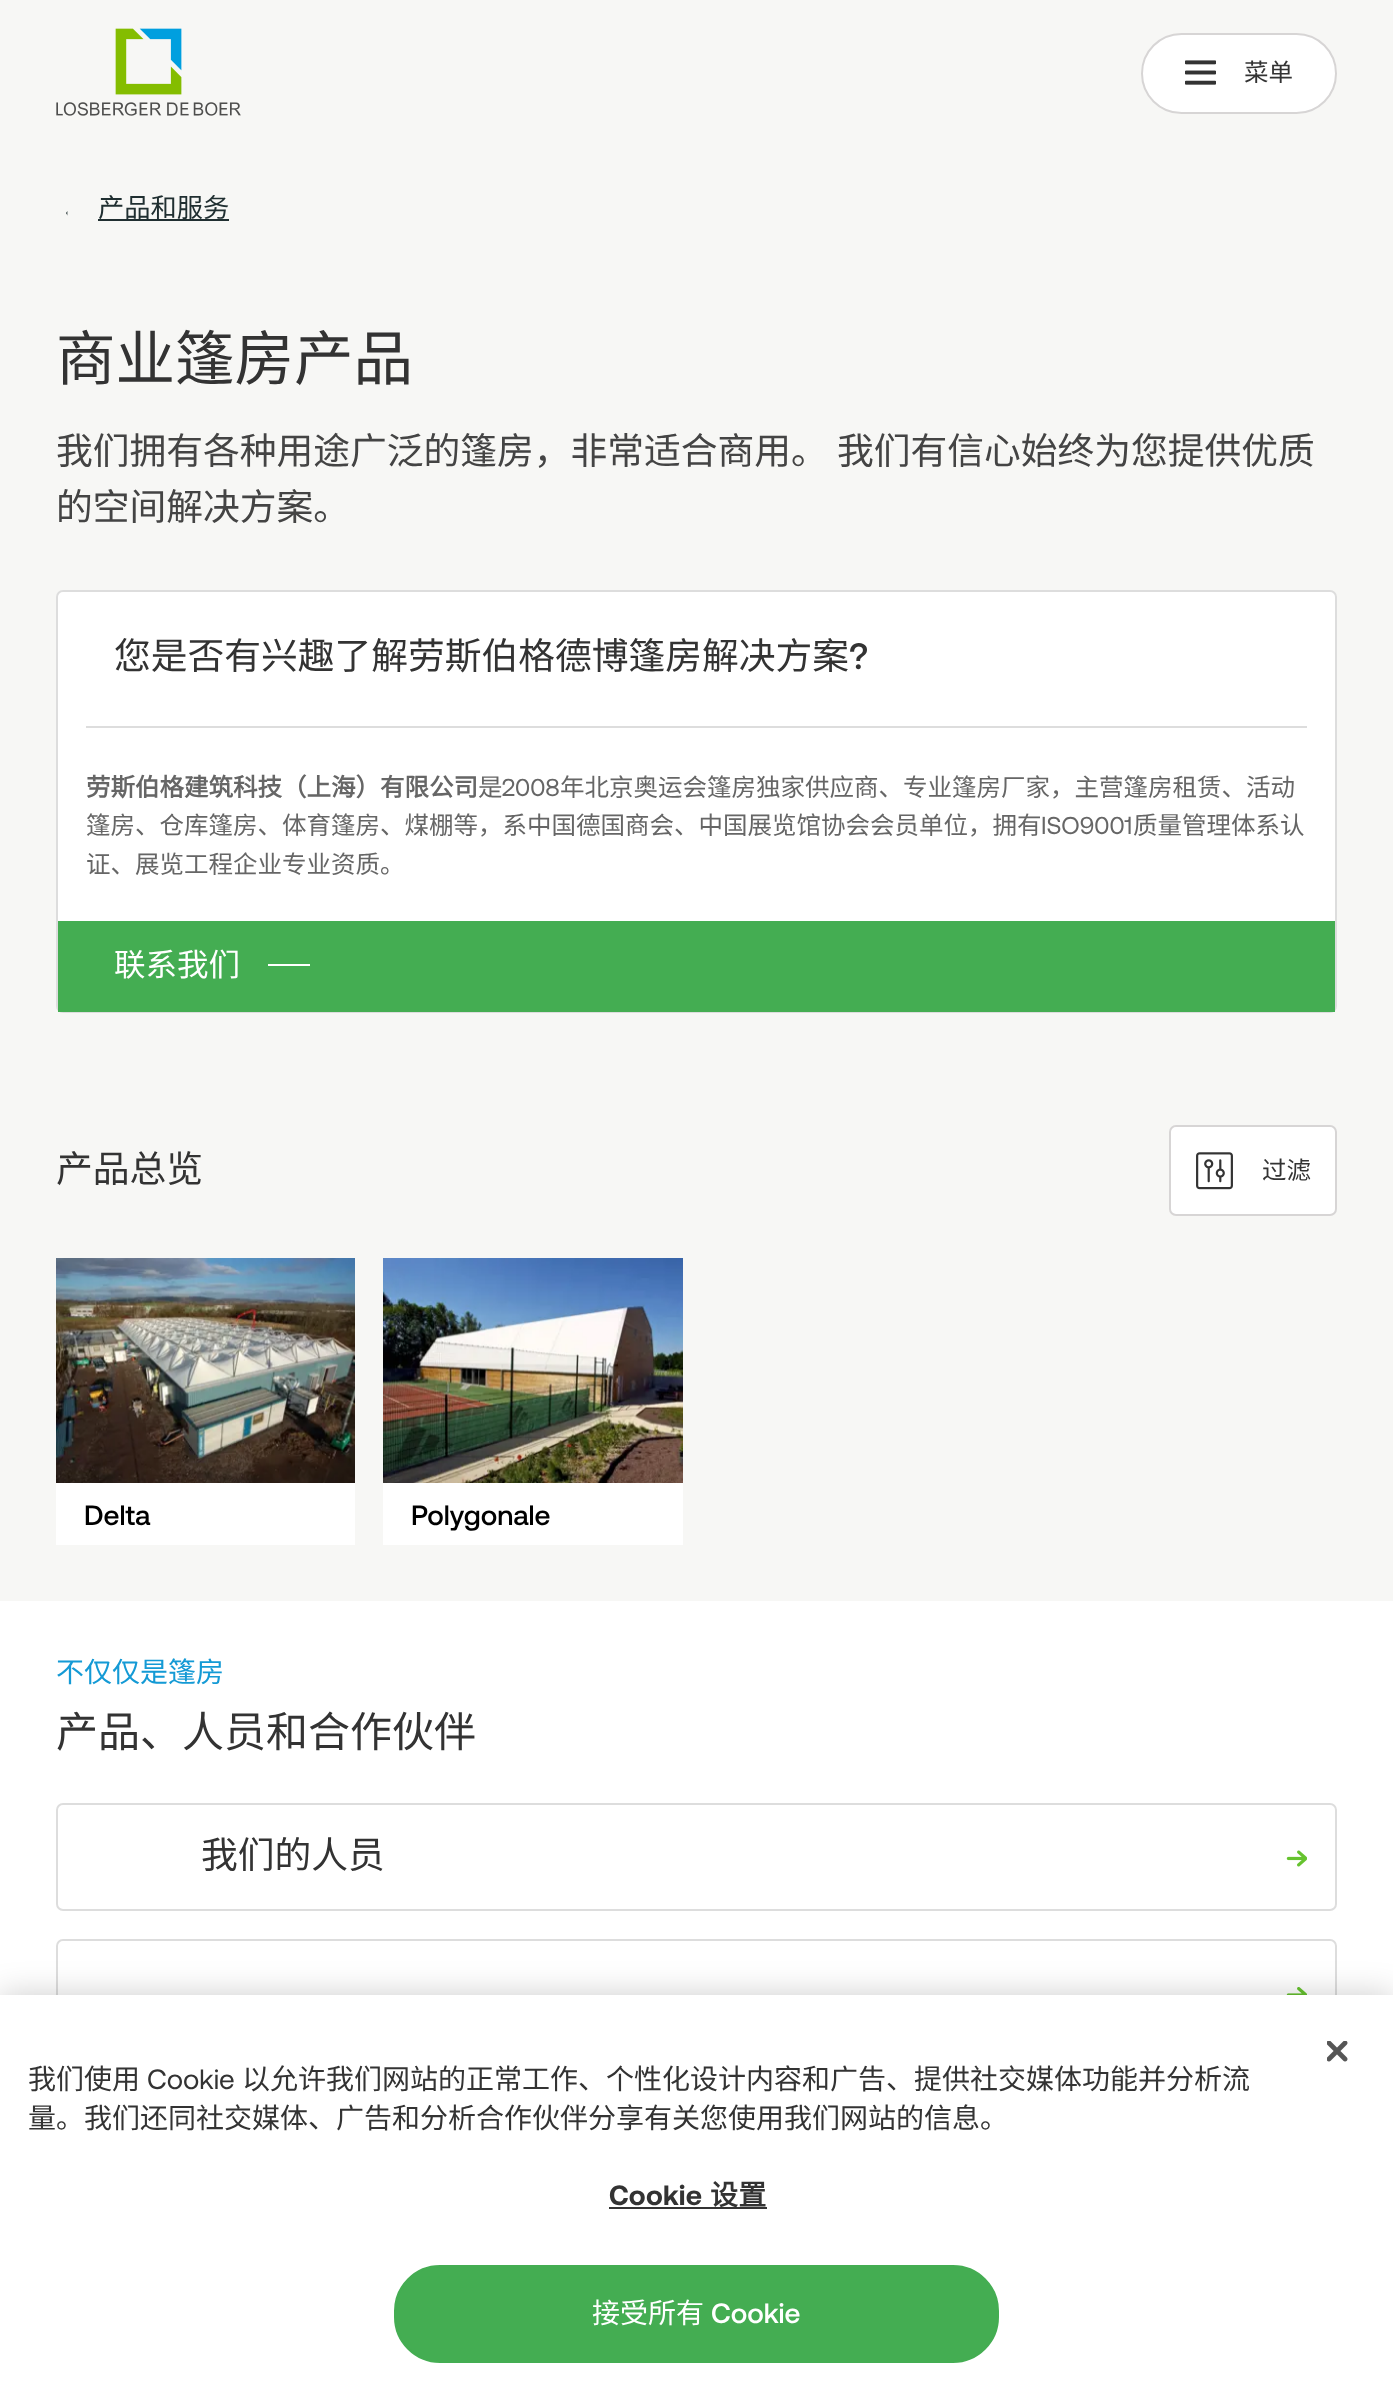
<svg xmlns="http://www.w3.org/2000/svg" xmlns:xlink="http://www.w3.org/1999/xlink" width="1393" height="2390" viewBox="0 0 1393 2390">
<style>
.cls-1{font:24.5px Noto Sans CJK SC;fill:#333333}
.cls-2{font:26.25px Noto Sans CJK SC;fill:#202f31}
.cls-3{font:59.5px Noto Sans CJK SC;fill:#333333}
.cls-4{font:36.75px Noto Sans CJK SC;fill:#444444}
.cls-5{font:36.75px Noto Sans CJK SC;fill:#333333}
.cls-6{font:500 36.75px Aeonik;fill:#333333}
.cls-7{font:bold 24.5px Noto Sans CJK SC;fill:#666666}
.cls-8{font:24.5px Noto Sans CJK SC;fill:#666666}
.cls-9{font:24.5px Aeonik;fill:#666666}
.cls-10{font:31.5px Noto Sans CJK SC;fill:#ffffff}
.cls-11{font:500 28px Aeonik;fill:#000000}
.cls-12{font:28px Noto Sans CJK SC;fill:#149ad5}
.cls-13{font:42px Noto Sans CJK SC;fill:#333333}
.cls-14{font:28px Noto Sans CJK SC;fill:#333333}
.cls-15{font:28px Aeonik;fill:#333333}
.cls-16{font:bold 28px Aeonik;letter-spacing:0.25px;fill:#333333}
.cls-17{font:bold 28px Noto Sans CJK SC;letter-spacing:0.25px;fill:#333333}
.cls-18{font:28px Noto Sans CJK SC;fill:#ffffff}
.cls-19{font:500 28px Aeonik;fill:#ffffff}
</style>
<rect width="100%" height="100%" fill="#ffffff"/>
<rect fill="#f7f7f5" x="0" y="0" width="1393" height="1601"/>
<image xlink:href="image0.png" x="56" y="28" width="185" height="88"/>
<rect fill="#ffffff" stroke="#d7d5d5" stroke-width="2" x="1142" y="34" width="194" height="79" rx="39.5"/>
<image xlink:href="image1.png" x="1185" y="60" width="31" height="25"/>
<image xlink:href="image2.png" x="66" y="211" width="2" height="5"/>
<rect fill="#202f31" x="98" y="219" width="131" height="2"/>
<rect fill="#ffffff" stroke="#dddddd" stroke-width="2" x="57" y="591" width="1279" height="421" rx="6"/>
<rect fill="#dddddd" x="86" y="726" width="1221" height="2"/>
<rect fill="#44ad52" x="58" y="921" width="1277" height="91"/>
<rect fill="#ffffff" x="268" y="964" width="42" height="2"/>
<rect fill="#ffffff" stroke="#d7d5d5" stroke-width="2" x="1170" y="1126" width="166" height="89" rx="6"/>
<image xlink:href="image3.png" x="1196" y="1152" width="37" height="38"/>
<rect fill="#ffffff" x="56" y="1483" width="299" height="62"/>
<image xlink:href="image4.png" x="56" y="1258" width="299" height="225"/>
<rect fill="#ffffff" x="383" y="1483" width="300" height="62"/>
<image xlink:href="image5.png" x="383" y="1258" width="300" height="225"/>
<rect fill="none" stroke="#dddddd" stroke-width="2" x="57" y="1804" width="1279" height="106" rx="6"/>
<image xlink:href="image6.png" x="1286" y="1850" width="21" height="17"/>
<rect fill="none" stroke="#dddddd" stroke-width="2" x="57" y="1940" width="1279" height="105" rx="6"/>
<image xlink:href="image7.png" x="1286" y="1987" width="21" height="8"/>
<rect fill="#000000" fill-opacity="0.2" filter="blur(16px)" x="0" y="1995" width="1393" height="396"/>
<rect fill="#ffffff" x="0" y="1995" width="1393" height="395"/>
<image xlink:href="image8.png" x="1327" y="2041" width="21" height="21"/>
<rect fill="#333333" x="609" y="2207" width="158" height="2"/>
<rect fill="#44ad52" stroke="#44ad52" stroke-width="2" x="395" y="2266" width="603" height="96" rx="45"/>
<text class="cls-1" x="1244" y="81">菜单</text>
<text class="cls-2" x="98" y="217">产品和服务</text>
<text class="cls-3" x="56" y="380">商业篷房产品</text>
<text class="cls-4"><tspan x="56" y="464" word-spacing="1">我们拥有各种用途广泛的篷房，非常适合商用。 我们有信心始终为您提供优质</tspan><tspan x="56" y="520">的空间解决方案。</tspan></text>
<text class="cls-5" x="114" y="669">您是否有兴趣了解劳斯伯格德博篷房解决方案</text>
<text class="cls-6" x="849" y="669">?</text>
<text class="cls-7" x="86" y="796">劳斯伯格建筑科技（上海）有限公司</text>
<text class="cls-8" x="478" y="796">是</text>
<text class="cls-9" x="502" y="796">2008</text>
<text class="cls-8" x="560" y="796">年北京奥运会篷房独家供应商、专业篷房厂家，主营篷房租赁、活动</text>
<text class="cls-8" x="86" y="834">篷房、仓库篷房、体育篷房、煤棚等，系中国德国商会、中国展览馆协会会员单位，拥有</text>
<text class="cls-9" x="1041" y="834">ISO9001</text>
<text class="cls-8" x="1133" y="834">质量管理体系认</text>
<text class="cls-8" x="86" y="873">证、展览工程企业专业资质。</text>
<text class="cls-10" x="114" y="976">联系我们</text>
<text class="cls-5" x="56" y="1182">产品总览</text>
<text class="cls-1" x="1262" y="1179">过滤</text>
<text class="cls-11" x="84" y="1525">Delta</text>
<text class="cls-11" x="411" y="1525">Polygonale</text>
<text class="cls-12" x="56" y="1682">不仅仅是篷房</text>
<text class="cls-13" x="56" y="1747">产品、人员和合作伙伴</text>
<text class="cls-5" x="201" y="1868">我们的人员</text>
<text class="cls-14" x="28" y="2089">我们使用</text>
<text class="cls-15" x="147" y="2089">Cookie</text>
<text class="cls-14" x="242" y="2089">以允许我们网站的正常工作、个性化设计内容和广告、提供社交媒体功能并分析流</text>
<text class="cls-14" x="28" y="2128">量。我们还同社交媒体、广告和分析合作伙伴分享有关您使用我们网站的信息。</text>
<text class="cls-16" x="609" y="2205">Cookie</text>
<text class="cls-17" x="710" y="2205">设置</text>
<text class="cls-18" x="592" y="2323">接受所有</text>
<text class="cls-19" x="711" y="2323">Cookie</text>
</svg>
